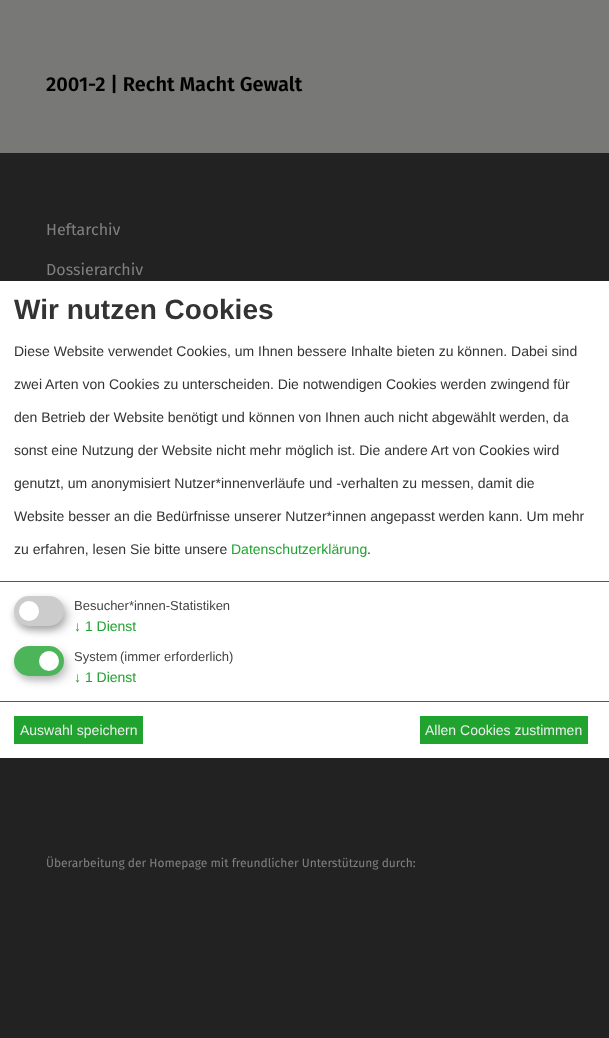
<svg xmlns="http://www.w3.org/2000/svg" xmlns:xlink="http://www.w3.org/1999/xlink" width="609" height="1038" viewBox="0 0 609 1038">
<style>
.cls-1{font:600 20px Fira Sans;fill:#000000}
.cls-2{font:16px Fira Sans;fill:#808080}
.cls-3{font:12px Fira Sans;fill:#808080}
.cls-4{font:bold 28px Liberation Sans;fill:#333333}
.cls-5{font:14px Liberation Sans;fill:#333333}
.cls-6{font:14px Liberation Sans;fill:#20a32f}
.cls-7{font:13px Liberation Sans;fill:#444444}
.cls-8{font:14px Liberation Sans;fill:#eeeeee}
</style>
<rect width="100%" height="100%" fill="#787877"/>
<rect fill="#222222" x="0" y="153" width="609" height="885"/>
<rect fill="#ffffff" x="0" y="281" width="609" height="477"/>
<rect fill="#555555" x="0" y="581" width="609" height="1"/>
<rect fill="#000000" fill-opacity="0.19" filter="blur(5px)" x="19" y="601" width="50" height="30" rx="15"/>
<rect fill="#000000" fill-opacity="0.2" filter="blur(3px)" x="14" y="600" width="50" height="30" rx="15"/>
<rect fill="#cccccc" x="14" y="596" width="50" height="30" rx="15"/>
<circle fill="#ffffff" cx="29" cy="611" r="10"/>
<rect fill="#000000" fill-opacity="0.15" filter="blur(5px)" x="19" y="651" width="50" height="30" rx="15"/>
<rect fill="#333333" fill-opacity="0.2" filter="blur(3px)" x="14" y="650" width="50" height="30" rx="15"/>
<rect fill="#4db559" x="14" y="646" width="50" height="30" rx="15"/>
<circle fill="#ffffff" cx="49" cy="661" r="10"/>
<rect fill="#555555" x="0" y="701" width="609" height="1"/>
<rect fill="#20a32f" x="14" y="716" width="129" height="28"/>
<rect fill="#20a32f" x="420" y="716" width="168" height="28"/>
<text class="cls-1" x="46" y="91">2001-2 | Recht Macht Gewalt</text>
<text class="cls-2" x="46" y="235">Heftarchiv</text>
<text class="cls-2" x="46" y="275">Dossierarchiv</text>
<text class="cls-3" x="46" y="867">Überarbeitung der Homepage mit freundlicher Unterstützung durch:</text>
<text class="cls-4" x="14" y="319">Wir nutzen Cookies</text>
<text class="cls-5" x="14" y="356">Diese Website verwendet Cookies, um Ihnen bessere Inhalte bieten zu können. Dabei sind</text>
<text class="cls-5" x="14" y="389">zwei Arten von Cookies zu unterscheiden. Die notwendigen Cookies werden zwingend für</text>
<text class="cls-5" x="14" y="422">den Betrieb der Website benötigt und können von Ihnen auch nicht abgewählt werden, da</text>
<text class="cls-5" x="14" y="455">sonst eine Nutzung der Website nicht mehr möglich ist. Die andere Art von Cookies wird</text>
<text class="cls-5" x="14" y="488">genutzt, um anonymisiert Nutzer*innenverläufe und -verhalten zu messen, damit die</text>
<text class="cls-5" x="14" y="521">Website besser an die Bedürfnisse unserer Nutzer*innen angepasst werden kann. Um mehr</text>
<text class="cls-5" x="14" y="554">zu erfahren, lesen Sie bitte unsere</text>
<text class="cls-6" x="231" y="554">Datenschutzerklärung</text>
<text class="cls-5" x="367" y="554">.</text>
<text class="cls-7" x="74" y="610">Besucher*innen-Statistiken</text>
<text class="cls-6" x="74" y="631">↓ 1 Dienst</text>
<text class="cls-7" x="74" y="661">System</text>
<text class="cls-7" x="120" y="661">(immer erforderlich)</text>
<text class="cls-6" x="74" y="682">↓ 1 Dienst</text>
<text class="cls-8" x="20" y="735">Auswahl speichern</text>
<text class="cls-8" x="425" y="735">Allen Cookies zustimmen</text>
</svg>
